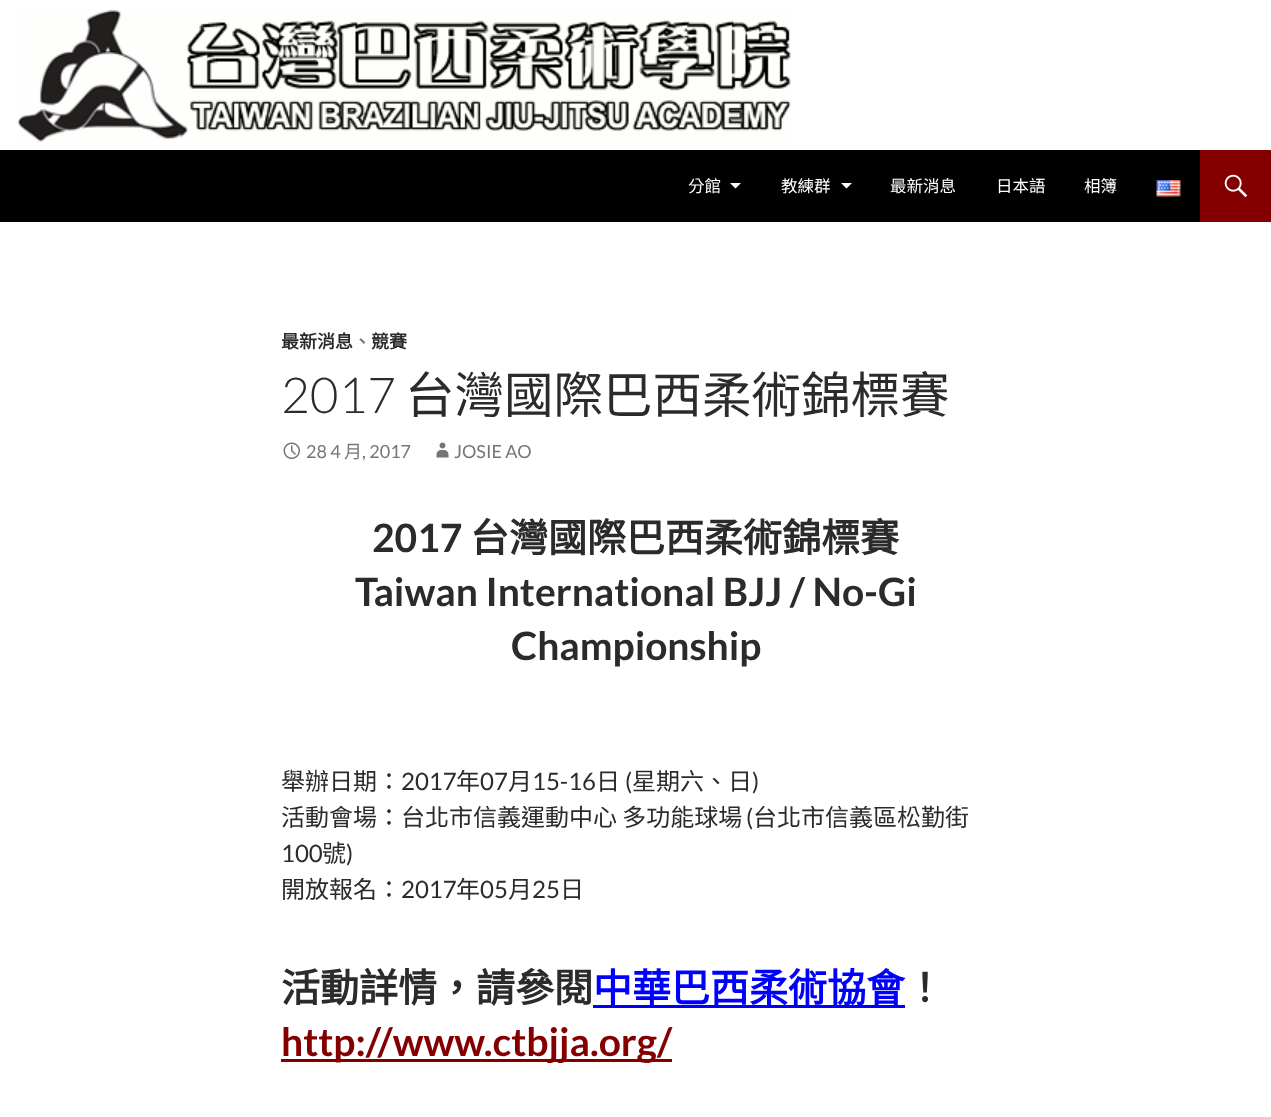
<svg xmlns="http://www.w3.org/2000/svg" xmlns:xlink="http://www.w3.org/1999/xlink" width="1271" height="1117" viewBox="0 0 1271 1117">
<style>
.cls-1{font:16.5px Noto Sans CJK TC;fill:#ffffff}
.cls-2{font:bold 18px Noto Sans CJK TC;fill:#2b2b2b}
.cls-3{font:bold 18px Noto Sans CJK TC;fill:#767676}
.cls-4{font:300 49.5px Lato;fill:#2b2b2b}
.cls-5{font:49.5px Noto Sans CJK TC;fill:#2b2b2b}
.cls-6{font:18px Lato;fill:#767676}
.cls-7{font:18px Noto Sans CJK TC;fill:#767676}
.cls-8{font:bold 39px Lato;fill:#2b2b2b}
.cls-9{font:bold 39px Noto Sans CJK TC;fill:#2b2b2b}
.cls-10{font:24px Noto Sans CJK TC;fill:#2b2b2b}
.cls-11{font:24px Lato;fill:#2b2b2b}
.cls-12{font:bold 39px Noto Sans CJK TC;fill:#0000ff}
.cls-13{font:bold 39px Lato;fill:#840000}
</style>
<rect width="100%" height="100%" fill="#ffffff"/>
<image xlink:href="image0.png" x="17" y="9" width="774" height="134"/>
<rect fill="#000000" x="0" y="150" width="1200" height="72"/>
<path fill="#ffffff" d="M730 183L735.5 188.5L741 183Z"/>
<path fill="#ffffff" d="M841 183L846.5 188.5L852 183Z"/>
<image xlink:href="image1.png" x="1156" y="180" width="25" height="17"/>
<rect fill="#840000" x="1200" y="150" width="71" height="72"/>
<image xlink:href="image2.png" x="1224" y="174" width="24" height="24"/>
<image xlink:href="image3.png" x="283" y="442" width="17" height="17"/>
<image xlink:href="image4.png" x="436" y="442" width="13" height="16"/>
<rect fill="#0000ff" x="593" y="1005" width="312" height="3"/>
<rect fill="#840000" x="281" y="1059" width="391" height="3"/>
<text class="cls-1" x="688" y="192">分館</text>
<text class="cls-1" x="781" y="192">教練群</text>
<text class="cls-1" x="890" y="192">最新消息</text>
<text class="cls-1" x="996" y="192">日本語</text>
<text class="cls-1" x="1084" y="192">相簿</text>
<text class="cls-2" x="281" y="348">最新消息</text>
<text class="cls-3" x="353" y="348">、</text>
<text class="cls-2" x="371" y="348">競賽</text>
<text class="cls-4" x="281" y="413">2017</text>
<text class="cls-5" x="405" y="413">台灣國際巴西柔術錦標賽</text>
<text class="cls-6" x="306" y="458">28 4</text>
<text class="cls-7" x="344" y="458">月</text>
<text class="cls-6" x="362" y="458">, 2017</text>
<text class="cls-6" x="454" y="458">JOSIE AO</text>
<text class="cls-8" x="372" y="552">2017</text>
<text class="cls-9" x="470" y="552">台灣國際巴西柔術錦標賽</text>
<text class="cls-8" x="355" y="606">Taiwan International BJJ / No-Gi</text>
<text class="cls-8" x="511" y="660">Championship</text>
<text class="cls-10" x="281" y="790">舉辦日期：</text>
<text class="cls-11" x="401" y="790">2017</text>
<text class="cls-10" x="456" y="790">年</text>
<text class="cls-11" x="480" y="790">07</text>
<text class="cls-10" x="508" y="790">月</text>
<text class="cls-11" x="532" y="790">15-16</text>
<text class="cls-10" x="596" y="790">日</text>
<text class="cls-11" x="625" y="790">(</text>
<text class="cls-10" x="632" y="790">星期六、日</text>
<text class="cls-11" x="752" y="790">)</text>
<text class="cls-10" x="281" y="826">活動會場：台北市信義運動中心 多功能球場</text>
<text class="cls-11" x="746" y="826">(</text>
<text class="cls-10" x="753" y="826">台北市信義區松勤街</text>
<text class="cls-11" x="281" y="862">100</text>
<text class="cls-10" x="322" y="862">號</text>
<text class="cls-11" x="346" y="862">)</text>
<text class="cls-10" x="281" y="898">開放報名：</text>
<text class="cls-11" x="401" y="898">2017</text>
<text class="cls-10" x="456" y="898">年</text>
<text class="cls-11" x="480" y="898">05</text>
<text class="cls-10" x="508" y="898">月</text>
<text class="cls-11" x="532" y="898">25</text>
<text class="cls-10" x="560" y="898">日</text>
<text class="cls-9" x="281" y="1002">活動詳情，請參閱</text>
<text class="cls-12" x="593" y="1002">中華巴西柔術協會</text>
<text class="cls-9" x="905" y="1002">！</text>
<text class="cls-13" x="281" y="1056">http://www.ctbjja.org/</text>
</svg>
